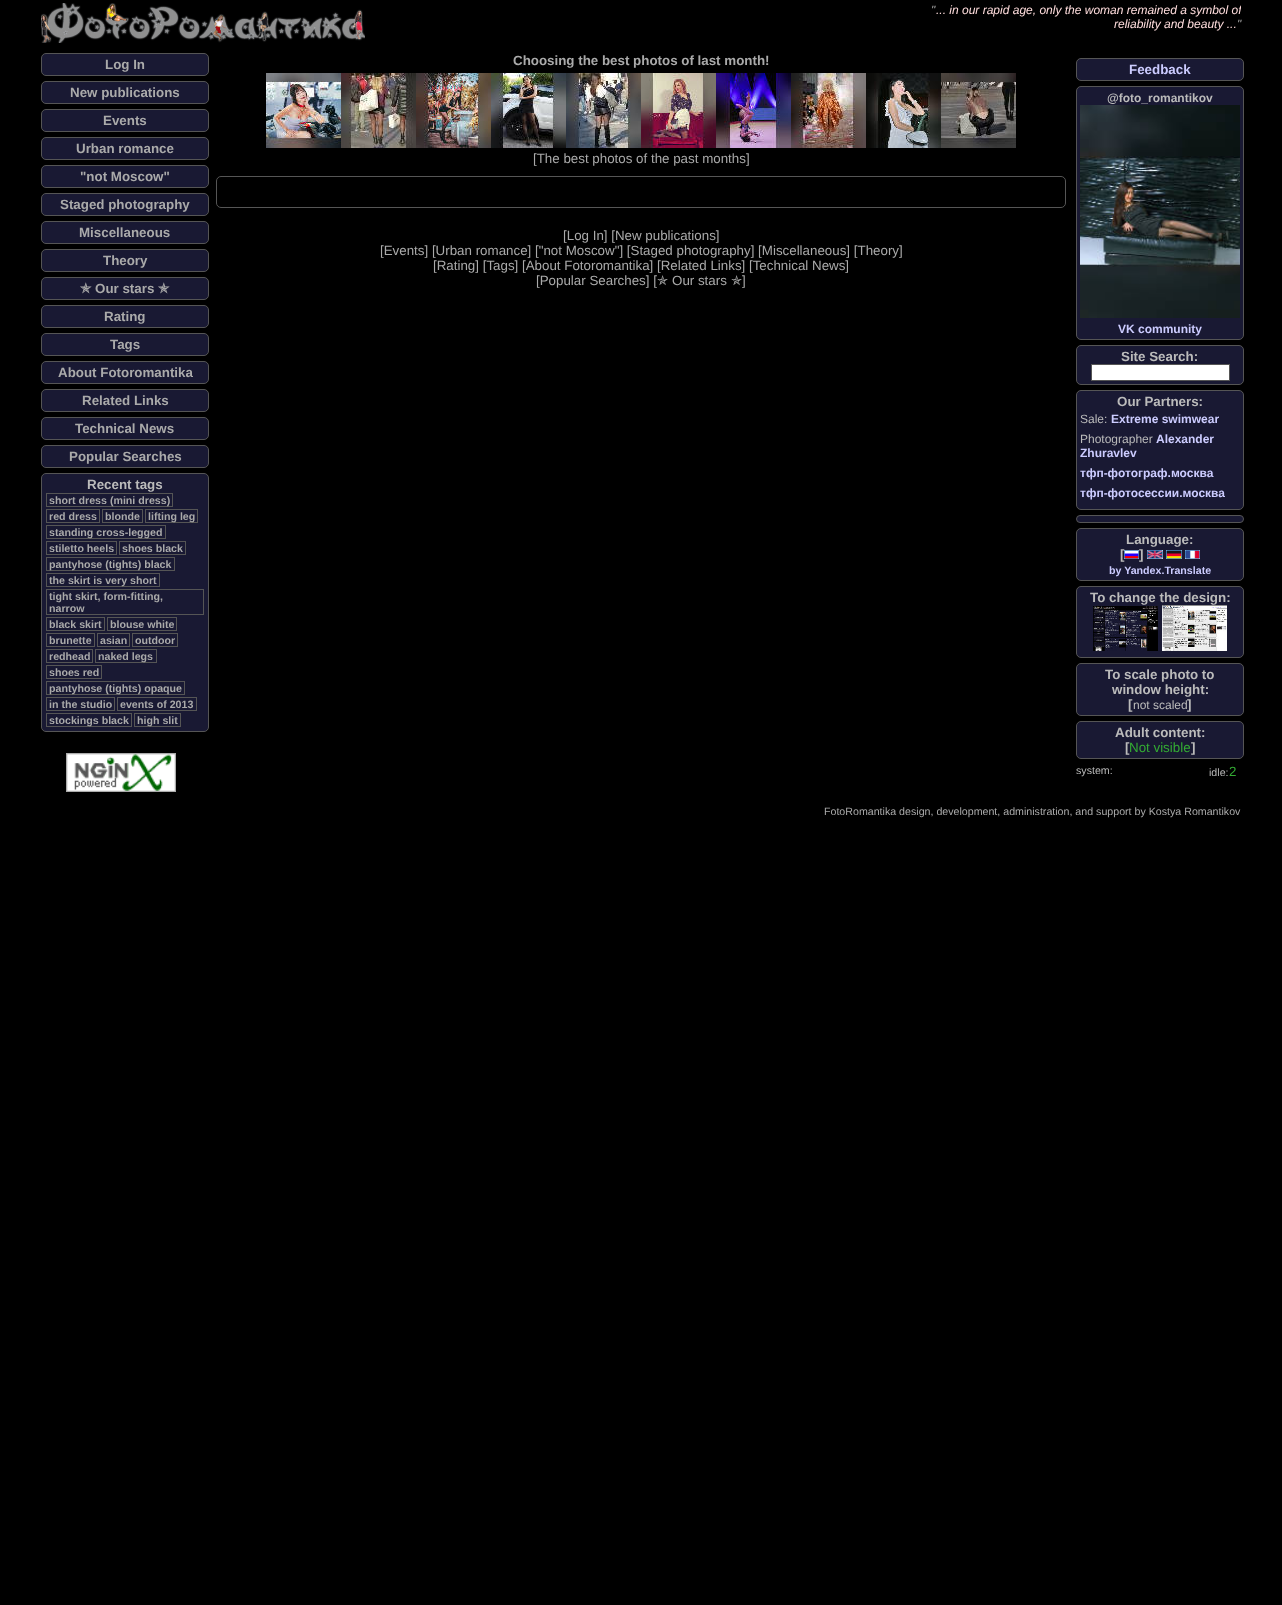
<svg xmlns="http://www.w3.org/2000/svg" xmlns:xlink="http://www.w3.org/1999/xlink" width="1282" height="1605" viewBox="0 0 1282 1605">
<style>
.cls-1{font:italic 12px Liberation Sans;fill:#aaaaaa}
.cls-2{font:italic 12px Liberation Sans;fill:#ffdddd}
.cls-3{font:bold 13.35px Liberation Sans;fill:#aaaaaa}
.cls-4{font:bold 13.35px DejaVu Sans;fill:#aaaaaa}
.cls-5{font:bold 13.35px Liberation Sans;fill:#bbbbbb}
.cls-6{font:bold 10.65px Liberation Sans;fill:#aaaaaa}
.cls-7{font:13.35px Liberation Sans;fill:#aaaaaa}
.cls-8{font:bold 13.35px Liberation Sans;fill:#ccccff}
.cls-9{font:bold 12px Liberation Sans;fill:#bbbbbb}
.cls-10{font:bold 12px Liberation Sans;fill:#ccccff}
.cls-11{font:12px Liberation Sans;fill:#bbbbbb}
.cls-12{font:bold 10.65px Liberation Sans;fill:#ccccff}
.cls-13{font:13.35px Liberation Sans;fill:#33aa33}
.cls-14{font:10.65px Liberation Sans;fill:#bbbbbb}
.cls-15{font:13.35px DejaVu Sans;fill:#aaaaaa}
.cls-16{font:10.65px Liberation Sans;fill:#aaaaaa}
</style>
<defs>
<clipPath id="clip1"><rect x="891" y="3" width="350" height="40"/></clipPath>
</defs>
<rect width="100%" height="100%" fill="#000000"/>
<image xlink:href="image0.png" x="41" y="3" width="324" height="40"/>
<rect fill="#191933" stroke="#555555" x="41.5" y="53.5" width="167" height="22" rx="4.5"/>
<rect fill="#191933" stroke="#555555" x="41.5" y="81.5" width="167" height="22" rx="4.5"/>
<rect fill="#191933" stroke="#555555" x="41.5" y="109.5" width="167" height="22" rx="4.5"/>
<rect fill="#191933" stroke="#555555" x="41.5" y="137.5" width="167" height="22" rx="4.5"/>
<rect fill="#191933" stroke="#555555" x="41.5" y="165.5" width="167" height="22" rx="4.5"/>
<rect fill="#191933" stroke="#555555" x="41.5" y="193.5" width="167" height="22" rx="4.5"/>
<rect fill="#191933" stroke="#555555" x="41.5" y="221.5" width="167" height="22" rx="4.5"/>
<rect fill="#191933" stroke="#555555" x="41.5" y="249.5" width="167" height="22" rx="4.5"/>
<rect fill="#191933" stroke="#555555" x="41.5" y="277.5" width="167" height="22" rx="4.5"/>
<rect fill="#191933" stroke="#555555" x="41.5" y="305.5" width="167" height="22" rx="4.5"/>
<rect fill="#191933" stroke="#555555" x="41.5" y="333.5" width="167" height="22" rx="4.5"/>
<rect fill="#191933" stroke="#555555" x="41.5" y="361.5" width="167" height="22" rx="4.5"/>
<rect fill="#191933" stroke="#555555" x="41.5" y="389.5" width="167" height="22" rx="4.5"/>
<rect fill="#191933" stroke="#555555" x="41.5" y="417.5" width="167" height="22" rx="4.5"/>
<rect fill="#191933" stroke="#555555" x="41.5" y="445.5" width="167" height="22" rx="4.5"/>
<rect fill="#191933" stroke="#555555" x="41.5" y="473.5" width="167" height="258" rx="4.5"/>
<rect fill="none" stroke="#555555" x="46.5" y="493.5" width="126" height="13"/>
<rect fill="none" stroke="#555555" x="46.5" y="509.5" width="53" height="13"/>
<rect fill="none" stroke="#555555" x="102.5" y="509.5" width="40" height="13"/>
<rect fill="none" stroke="#555555" x="145.5" y="509.5" width="52" height="13"/>
<rect fill="none" stroke="#555555" x="46.5" y="525.5" width="119" height="13"/>
<rect fill="none" stroke="#555555" x="46.5" y="541.5" width="70" height="13"/>
<rect fill="none" stroke="#555555" x="119.5" y="541.5" width="66" height="13"/>
<rect fill="none" stroke="#555555" x="46.5" y="557.5" width="128" height="13"/>
<rect fill="none" stroke="#555555" x="46.5" y="573.5" width="113" height="13"/>
<rect fill="none" stroke="#555555" x="46.5" y="589.5" width="157" height="25"/>
<rect fill="none" stroke="#555555" x="46.5" y="617.5" width="58" height="13"/>
<rect fill="none" stroke="#555555" x="107.5" y="617.5" width="69" height="13"/>
<rect fill="none" stroke="#555555" x="46.5" y="633.5" width="48" height="13"/>
<rect fill="none" stroke="#555555" x="97.5" y="633.5" width="32" height="13"/>
<rect fill="none" stroke="#555555" x="132.5" y="633.5" width="45" height="13"/>
<rect fill="none" stroke="#555555" x="46.5" y="649.5" width="46" height="13"/>
<rect fill="none" stroke="#555555" x="95.5" y="649.5" width="61" height="13"/>
<rect fill="none" stroke="#555555" x="46.5" y="665.5" width="55" height="13"/>
<rect fill="none" stroke="#555555" x="46.5" y="681.5" width="138" height="13"/>
<rect fill="none" stroke="#555555" x="46.5" y="697.5" width="68" height="13"/>
<rect fill="none" stroke="#555555" x="117.5" y="697.5" width="79" height="13"/>
<rect fill="none" stroke="#555555" x="46.5" y="713.5" width="85" height="13"/>
<rect fill="none" stroke="#555555" x="134.5" y="713.5" width="46" height="13"/>
<image xlink:href="image1.png" x="66" y="753" width="110" height="39"/>
<image xlink:href="image2.png" x="266" y="73" width="75" height="75"/>
<image xlink:href="image3.png" x="341" y="73" width="75" height="75"/>
<image xlink:href="image4.png" x="416" y="73" width="75" height="75"/>
<image xlink:href="image5.png" x="491" y="73" width="75" height="75"/>
<image xlink:href="image6.png" x="566" y="73" width="75" height="75"/>
<image xlink:href="image7.png" x="641" y="73" width="75" height="75"/>
<image xlink:href="image8.png" x="716" y="73" width="75" height="75"/>
<image xlink:href="image9.png" x="791" y="73" width="75" height="75"/>
<image xlink:href="image10.png" x="866" y="73" width="75" height="75"/>
<image xlink:href="image11.png" x="941" y="73" width="75" height="75"/>
<rect fill="#191933" stroke="#555555" x="1076.5" y="58.5" width="167" height="22" rx="4.5"/>
<rect fill="#191933" stroke="#555555" x="1076.5" y="86.5" width="167" height="253" rx="4.5"/>
<image xlink:href="image12.png" x="1080" y="105" width="160" height="213"/>
<rect fill="#191933" stroke="#555555" x="1076.5" y="345.5" width="167" height="39" rx="4.5"/>
<rect fill="#ffffff" stroke="#555555" x="1091.5" y="364.5" width="138" height="16"/>
<rect fill="#191933" stroke="#555555" x="1076.5" y="390.5" width="167" height="119" rx="4.5"/>
<rect fill="#191933" stroke="#555555" x="1076.5" y="515.5" width="167" height="7" rx="3.5"/>
<rect fill="#191933" stroke="#555555" x="1076.5" y="528.5" width="167" height="52" rx="4.5"/>
<image xlink:href="image13.png" x="1124" y="550" width="15" height="9"/>
<image xlink:href="image14.png" x="1147" y="550" width="16" height="9"/>
<image xlink:href="image15.png" x="1166" y="550" width="16" height="9"/>
<image xlink:href="image16.png" x="1185" y="550" width="15" height="9"/>
<rect fill="#191933" stroke="#555555" x="1076.5" y="586.5" width="167" height="71" rx="4.5"/>
<image xlink:href="image17.png" x="1093" y="606" width="65" height="45"/>
<image xlink:href="image18.png" x="1162" y="605" width="65" height="46"/>
<rect fill="#191933" stroke="#555555" x="1076.5" y="663.5" width="167" height="52" rx="4.5"/>
<rect fill="#191933" stroke="#555555" x="1076.5" y="721.5" width="167" height="37" rx="4.5"/>
<rect fill="none" stroke="#555555" x="216.5" y="176.5" width="849" height="31" rx="4.5"/>
<text class="cls-1" x="931" y="14">"</text>
<g clip-path="url(#clip1)">
<text class="cls-2" x="936" y="14">... in our rapid age, only the woman remained a symbol of</text>
</g>
<text class="cls-2" x="1114" y="28">reliability and beauty ...</text>
<text class="cls-1" x="1237" y="28">"</text>
<text class="cls-3" x="105" y="69">Log In</text>
<text class="cls-3" x="70" y="97">New publications</text>
<text class="cls-3" x="103" y="125">Events</text>
<text class="cls-3" x="76" y="153">Urban romance</text>
<text class="cls-3" x="80" y="181">"not Moscow"</text>
<text class="cls-3" x="60" y="209">Staged photography</text>
<text class="cls-3" x="79" y="237">Miscellaneous</text>
<text class="cls-3" x="103" y="265">Theory</text>
<text class="cls-4" x="80" y="293">✯</text>
<text class="cls-3" x="95" y="293">Our stars</text>
<text class="cls-4" x="158" y="293">✯</text>
<text class="cls-3" x="104" y="321">Rating</text>
<text class="cls-3" x="110" y="349">Tags</text>
<text class="cls-3" x="58" y="377">About Fotoromantika</text>
<text class="cls-3" x="82" y="405">Related Links</text>
<text class="cls-3" x="75" y="433">Technical News</text>
<text class="cls-3" x="69" y="461">Popular Searches</text>
<text class="cls-5" x="87" y="489">Recent tags</text>
<text class="cls-6"><tspan x="49" y="504">short dress (mini dress)</tspan><tspan x="49" y="520">red dress</tspan></text>
<text class="cls-6" x="105" y="520">blonde</text>
<text class="cls-6" x="148" y="520">lifting leg</text>
<text class="cls-6"><tspan x="49" y="536">standing cross-legged</tspan><tspan x="49" y="552">stiletto heels</tspan></text>
<text class="cls-6" x="122" y="552">shoes black</text>
<text class="cls-6"><tspan x="49" y="568">pantyhose (tights) black</tspan><tspan x="49" y="584">the skirt is very short</tspan><tspan x="49" y="600">tight skirt, form-fitting,</tspan><tspan x="49" y="612">narrow</tspan><tspan x="49" y="628">black skirt</tspan></text>
<text class="cls-6" x="110" y="628">blouse white</text>
<text class="cls-6" x="49" y="644">brunette</text>
<text class="cls-6" x="100" y="644">asian</text>
<text class="cls-6" x="135" y="644">outdoor</text>
<text class="cls-6" x="49" y="660">redhead</text>
<text class="cls-6" x="98" y="660">naked legs</text>
<text class="cls-6"><tspan x="49" y="676">shoes red</tspan><tspan x="49" y="692">pantyhose (tights) opaque</tspan><tspan x="49" y="708">in the studio</tspan></text>
<text class="cls-6" x="120" y="708">events of 2013</text>
<text class="cls-6" x="49" y="724">stockings black</text>
<text class="cls-6" x="137" y="724">high slit</text>
<text class="cls-3" x="513" y="65">Choosing the best photos of last month!</text>
<text class="cls-7" x="533" y="163">[The best photos of the past months]</text>
<text class="cls-8" x="1129" y="74">Feedback</text>
<text class="cls-9" x="1107" y="102">@foto_romantikov</text>
<text class="cls-10" x="1118" y="333">VK community</text>
<text class="cls-5" x="1121" y="361">Site Search:</text>
<text class="cls-5" x="1117" y="406">Our Partners:</text>
<text class="cls-11" x="1080" y="423">Sale:</text>
<text class="cls-10" x="1111" y="423">Extreme swimwear</text>
<text class="cls-11" x="1080" y="443">Photographer</text>
<text class="cls-10" x="1156" y="443">Alexander</text>
<text class="cls-10"><tspan x="1080" y="457">Zhuravlev</tspan><tspan x="1080" y="477">тфп-фотограф.москва</tspan><tspan x="1080" y="497">тфп-фотосессии.москва</tspan></text>
<text class="cls-5" x="1126" y="544">Language:</text>
<text class="cls-5" x="1120" y="559">[</text>
<text class="cls-5" x="1139" y="559">]</text>
<text class="cls-12" x="1109" y="574">by Yandex.Translate</text>
<text class="cls-5" x="1090" y="602">To change the design:</text>
<text class="cls-5" x="1105" y="679">To scale photo to</text>
<text class="cls-5" x="1112" y="694">window height:</text>
<text class="cls-5" x="1128" y="709">[</text>
<text class="cls-11" x="1133" y="709">not scaled</text>
<text class="cls-5" x="1187" y="709">]</text>
<text class="cls-5" x="1115" y="737">Adult content:</text>
<text class="cls-5" x="1125" y="752">[</text>
<text class="cls-13" x="1129" y="752">Not visible</text>
<text class="cls-5" x="1191" y="752">]</text>
<text class="cls-14" x="1076" y="774">system:</text>
<text class="cls-14" x="1209" y="776">idle:</text>
<text class="cls-13" x="1229" y="776">2</text>
<text class="cls-7" x="563" y="240">[Log In] [New publications]</text>
<text class="cls-7" x="380" y="255">[Events] [Urban romance] ["not Moscow"] [Staged photography] [Miscellaneous] [Theory]</text>
<text class="cls-7" x="433" y="270">[Rating] [Tags] [About Fotoromantika] [Related Links] [Technical News]</text>
<text class="cls-7" x="536" y="285">[Popular Searches] [</text>
<text class="cls-15" x="657" y="285">✯</text>
<text class="cls-7" x="672" y="285">Our stars</text>
<text class="cls-15" x="731" y="285">✯</text>
<text class="cls-7" x="742" y="285">]</text>
<text class="cls-16" x="824" y="815">FotoRomantika design, development, administration, and support by Kostya Romantikov</text>
</svg>
